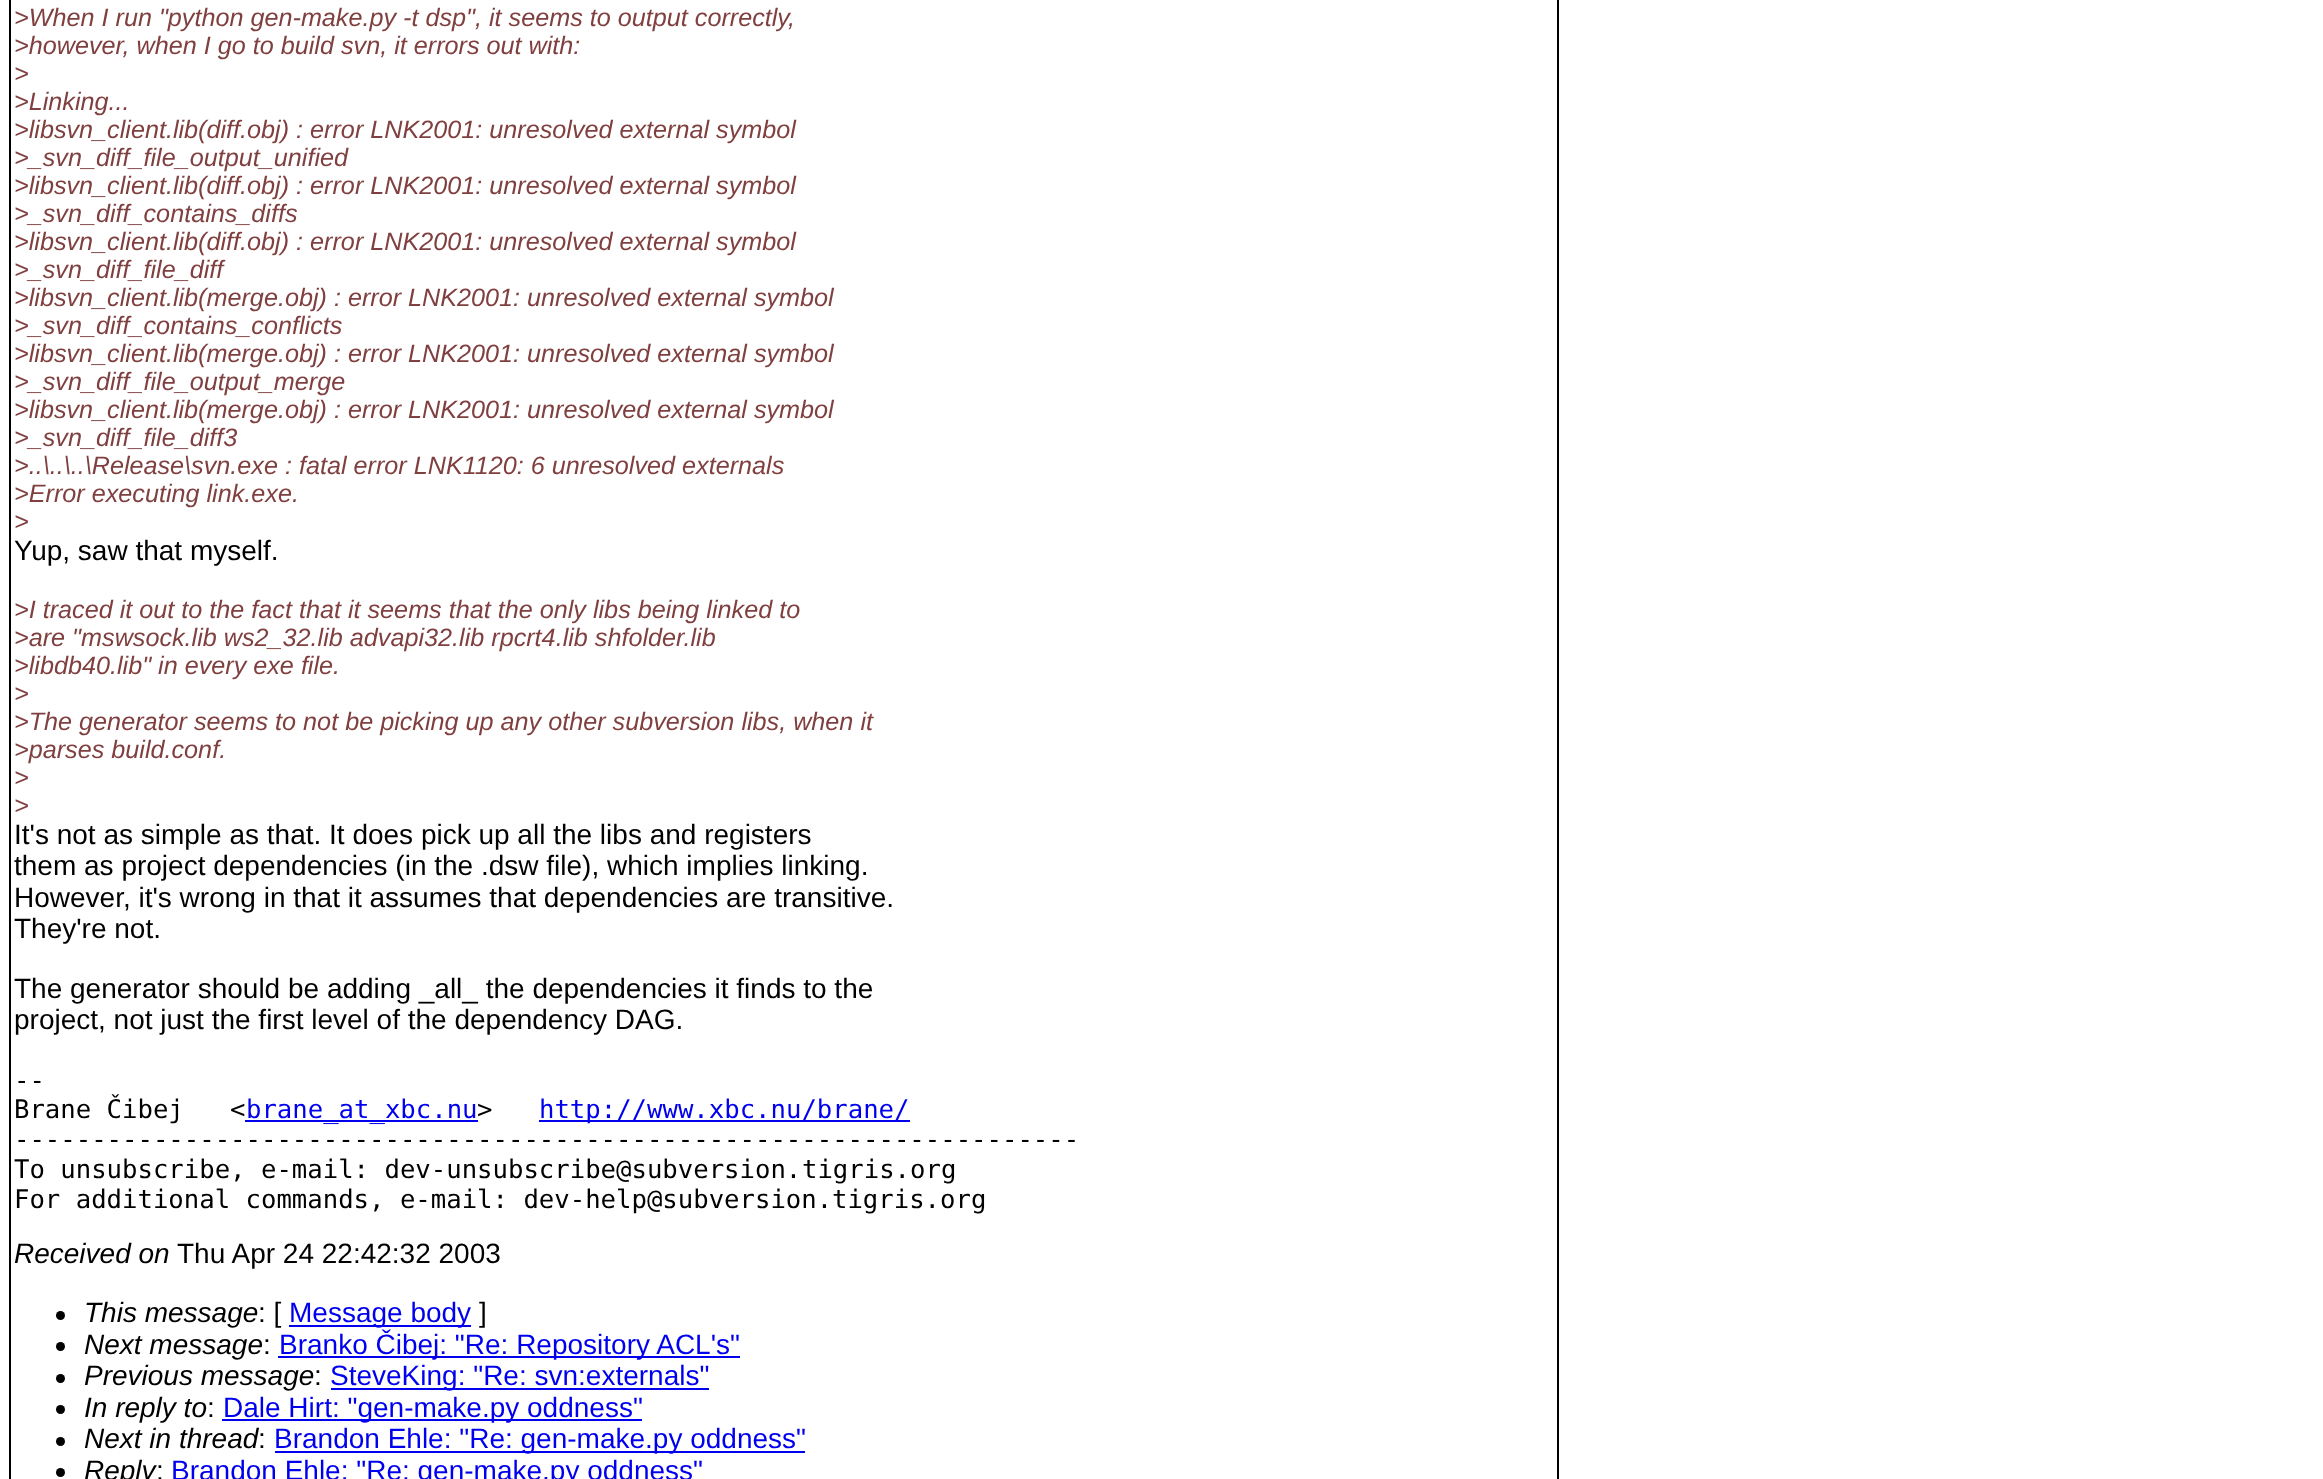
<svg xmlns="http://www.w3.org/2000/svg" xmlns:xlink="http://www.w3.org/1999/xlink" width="2323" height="1479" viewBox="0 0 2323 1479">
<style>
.cls-1{font:italic 25.2px Liberation Sans;fill:#804040}
.cls-2{font:28px Liberation Sans;fill:#000000}
.cls-3{font:25.65px DejaVu Sans Mono;fill:#000000}
.cls-4{font:25.65px DejaVu Sans Mono;fill:#0000ee}
.cls-5{font:italic 28px Liberation Sans;fill:#000000}
.cls-6{font:28px Liberation Sans;fill:#0000ee}
</style>
<rect width="100%" height="100%" fill="#ffffff"/>
<rect fill="none" stroke="#000000" stroke-width="2" x="10" y="-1" width="1548" height="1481"/>
<rect fill="#0000ee" x="245" y="1120" width="233" height="2"/>
<rect fill="#0000ee" x="539" y="1120" width="371" height="2"/>
<circle fill="#000000" cx="60.5" cy="1315.5" r="4.5"/>
<rect fill="#0000ee" x="289" y="1325" width="182" height="2"/>
<circle fill="#000000" cx="60.5" cy="1346.5" r="4.5"/>
<rect fill="#0000ee" x="278" y="1356" width="462" height="2"/>
<circle fill="#000000" cx="60.5" cy="1378.5" r="4.5"/>
<rect fill="#0000ee" x="331" y="1388" width="378" height="2"/>
<circle fill="#000000" cx="60.5" cy="1409.5" r="4.5"/>
<rect fill="#0000ee" x="222" y="1419" width="420" height="2"/>
<circle fill="#000000" cx="60.5" cy="1441.5" r="4.5"/>
<rect fill="#0000ee" x="275" y="1451" width="530" height="2"/>
<circle fill="#000000" cx="60.5" cy="1472.5" r="4.5"/>
<text class="cls-1"><tspan x="14" y="26">&gt;When I run "python gen-make.py -t dsp", it seems to output correctly,</tspan><tspan x="14" y="54">&gt;however, when I go to build svn, it errors out with:</tspan><tspan x="14" y="82">&gt;</tspan><tspan x="14" y="110">&gt;Linking...</tspan><tspan x="14" y="138">&gt;libsvn_client.lib(diff.obj) : error LNK2001: unresolved external symbol</tspan><tspan x="14" y="166">&gt;_svn_diff_file_output_unified</tspan><tspan x="14" y="194">&gt;libsvn_client.lib(diff.obj) : error LNK2001: unresolved external symbol</tspan><tspan x="14" y="222">&gt;_svn_diff_contains_diffs</tspan><tspan x="14" y="250">&gt;libsvn_client.lib(diff.obj) : error LNK2001: unresolved external symbol</tspan><tspan x="14" y="278">&gt;_svn_diff_file_diff</tspan><tspan x="14" y="306">&gt;libsvn_client.lib(merge.obj) : error LNK2001: unresolved external symbol</tspan><tspan x="14" y="334">&gt;_svn_diff_contains_conflicts</tspan><tspan x="14" y="362">&gt;libsvn_client.lib(merge.obj) : error LNK2001: unresolved external symbol</tspan><tspan x="14" y="390">&gt;_svn_diff_file_output_merge</tspan><tspan x="14" y="418">&gt;libsvn_client.lib(merge.obj) : error LNK2001: unresolved external symbol</tspan><tspan x="14" y="446">&gt;_svn_diff_file_diff3</tspan><tspan x="14" y="474">&gt;..\..\..\Release\svn.exe : fatal error LNK1120: 6 unresolved externals</tspan><tspan x="14" y="502">&gt;Error executing link.exe.</tspan><tspan x="14" y="530">&gt;</tspan></text>
<text class="cls-2" x="14" y="560">Yup, saw that myself.</text>
<text class="cls-1"><tspan x="14" y="618">&gt;I traced it out to the fact that it seems that the only libs being linked to</tspan><tspan x="14" y="646">&gt;are "mswsock.lib ws2_32.lib advapi32.lib rpcrt4.lib shfolder.lib</tspan><tspan x="14" y="674">&gt;libdb40.lib" in every exe file.</tspan><tspan x="14" y="702">&gt;</tspan><tspan x="14" y="730">&gt;The generator seems to not be picking up any other subversion libs, when it</tspan><tspan x="14" y="758">&gt;parses build.conf.</tspan><tspan x="14" y="786">&gt;</tspan><tspan x="14" y="814">&gt;</tspan></text>
<text class="cls-2"><tspan x="14" y="844">It's not as simple as that. It does pick up all the libs and registers</tspan><tspan x="14" y="875">them as project dependencies (in the .dsw file), which implies linking.</tspan><tspan x="14" y="907">However, it's wrong in that it assumes that dependencies are transitive.</tspan><tspan x="14" y="938">They're not.</tspan></text>
<text class="cls-2"><tspan x="14" y="998">The generator should be adding _all_ the dependencies it finds to the</tspan><tspan x="14" y="1029">project, not just the first level of the dependency DAG.</tspan></text>
<text class="cls-3" xml:space="preserve"><tspan x="14" y="1089">--</tspan><tspan x="14" y="1118">Brane Čibej   &lt;</tspan></text>
<text class="cls-4" x="246" y="1118">brane_at_xbc.nu</text>
<text class="cls-3" x="477" y="1118">&gt;</text>
<text class="cls-4" x="539" y="1118">http://www.xbc.nu/brane/</text>
<text class="cls-3"><tspan x="14" y="1148">---------------------------------------------------------------------</tspan><tspan x="14" y="1178">To unsubscribe, e-mail: dev-unsubscribe@subversion.</tspan></text>
<text class="cls-3" x="802" y="1178">tigris.org</text>
<text class="cls-3" x="14" y="1208">For additional commands, e-mail: dev-help@subversion.</text>
<text class="cls-3" x="832" y="1208">tigris.org</text>
<text class="cls-5" x="14" y="1263">Received on</text>
<text class="cls-2" x="177" y="1263">Thu Apr 24 22:42:32 2003</text>
<text class="cls-5" x="84" y="1322">This message</text>
<text class="cls-2" x="258" y="1322">: [</text>
<text class="cls-6" x="289" y="1322">Message body</text>
<text class="cls-2" x="479" y="1322">]</text>
<text class="cls-5" x="84" y="1354">Next message</text>
<text class="cls-2" x="263" y="1354">:</text>
<text class="cls-6" x="279" y="1354">Branko Čibej: "Re: Repository ACL's"</text>
<text class="cls-5" x="84" y="1385">Previous message</text>
<text class="cls-2" x="314" y="1385">:</text>
<text class="cls-6" x="330" y="1385">SteveKing: "Re: svn:externals"</text>
<text class="cls-5" x="84" y="1417">In reply to</text>
<text class="cls-2" x="207" y="1417">:</text>
<text class="cls-6" x="223" y="1417">Dale Hirt: "gen-make.py oddness"</text>
<text class="cls-5" x="84" y="1448">Next in thread</text>
<text class="cls-2" x="258" y="1448">:</text>
<text class="cls-6" x="274" y="1448">Brandon Ehle: "Re: gen-make.py oddness"</text>
<text class="cls-5" x="84" y="1480">Reply</text>
<text class="cls-2" x="156" y="1480">:</text>
<text class="cls-6" x="171" y="1480">Brandon Ehle: "Re: gen-make.py oddness"</text>
</svg>
